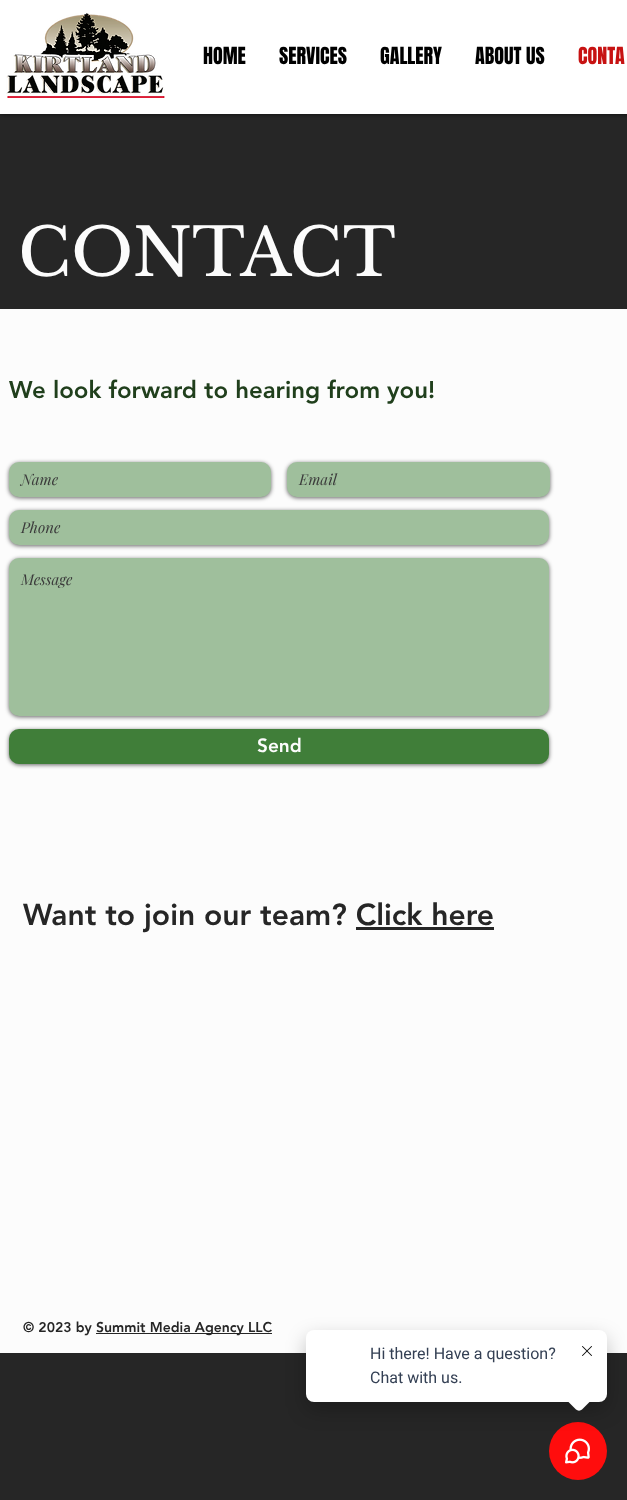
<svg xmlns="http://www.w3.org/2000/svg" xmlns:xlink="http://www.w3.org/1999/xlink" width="627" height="1500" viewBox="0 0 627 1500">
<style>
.cls-1{font:20px Anton;fill:#000000}
.cls-2{font:20px Anton;fill:#c71212}
.cls-3{font:66px Libre Baskerville;fill:#fcfcfc}
.cls-4{font:900 24px 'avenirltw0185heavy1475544';fill:#203f1c}
.cls-5{font:italic 15px Playfair Display;fill:#3b3b3b}
.cls-6{font:900 19px 'avenirltw0185heavy1475544';fill:#fcfcfc}
.cls-7{font:900 30px 'avenirltw0185heavy1475544';fill:#262626}
.cls-8{font:900 14px 'avenirltw0185heavy1475544';fill:#262626}
.cls-9{font:16px Roboto;fill:#344054}
</style>
<rect width="100%" height="100%" fill="#262626"/>
<rect fill="#000000" fill-opacity="0.7" filter="blur(2.5px)" x="0" y="0" width="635" height="114"/>
<rect fill="#ffffff" x="0" y="0" width="627" height="114"/>
<image xlink:href="image0.png" x="6" y="13" width="159" height="85"/>
<rect fill="#fcfcfc" x="0" y="309" width="627" height="1044"/>
<rect fill="#000000" fill-opacity="0.6" filter="blur(2px)" x="9" y="463" width="262" height="35" rx="10"/>
<rect fill="#9fbf9c" x="9" y="462" width="262" height="35" rx="10"/>
<rect fill="#000000" fill-opacity="0.6" filter="blur(2px)" x="287" y="463" width="263" height="35" rx="10"/>
<rect fill="#9fbf9c" x="287" y="462" width="263" height="35" rx="10"/>
<rect fill="#000000" fill-opacity="0.6" filter="blur(2px)" x="9" y="511" width="540" height="35" rx="10"/>
<rect fill="#9fbf9c" x="9" y="510" width="540" height="35" rx="10"/>
<rect fill="#000000" fill-opacity="0.6" filter="blur(2px)" x="9" y="559" width="540" height="158" rx="10"/>
<rect fill="#9fbf9c" x="9" y="558" width="540" height="158" rx="10"/>
<rect fill="#000000" fill-opacity="0.6" filter="blur(2px)" x="9" y="730" width="540" height="35" rx="10"/>
<rect fill="#407e39" x="9" y="729" width="540" height="35" rx="10"/>
<rect fill="#262626" x="356" y="927" width="138" height="3"/>
<rect fill="#262626" x="96" y="1333" width="176" height="1"/>
<circle fill="#ff0d0d" cx="578" cy="1451" r="29"/>
<image xlink:href="image2.png" x="565" y="1438" width="25" height="26"/>
<rect fill="#000000" fill-opacity="0.24" filter="blur(10px)" x="306" y="1338" width="301" height="72" rx="8"/>
<rect fill="#ffffff" x="306" y="1330" width="301" height="72" rx="8"/>
<path fill="#ffffff" d="M582 1386.5L590.5 1395C592 1396.5 592 1399.5 590.5 1401L582 1409.5C580.5 1411 577.5 1411 576 1409.5L567.5 1401C566 1399.5 566 1396.5 567.5 1395L576 1386.5C577.5 1385 580.5 1385 582 1386.5Z"/>
<image xlink:href="image1.png" x="582" y="1346" width="10" height="10"/>
<text class="cls-1" x="203" y="64">HOME</text>
<text class="cls-1" x="279" y="64">SERVICES</text>
<text class="cls-1" x="380" y="64">GALLERY</text>
<text class="cls-1" x="475" y="64">ABOUT US</text>
<text class="cls-2" x="578" y="64">CONTA</text>
<text class="cls-3" x="18" y="276">CONTACT</text>
<text class="cls-4" x="9" y="398">We look forward to hearing from you!</text>
<text class="cls-5" x="21" y="485">Name</text>
<text class="cls-5" x="299" y="485">Email</text>
<text class="cls-5" x="21" y="533">Phone</text>
<text class="cls-5" x="21" y="585">Message</text>
<text class="cls-6" x="257" y="752">Send</text>
<text class="cls-7" x="23" y="925">Want to join our team? Click here</text>
<text class="cls-8" x="23" y="1332">© 2023 by</text>
<text class="cls-8" x="96" y="1332">Summit Media Agency LLC</text>
<text class="cls-9"><tspan x="370" y="1359">Hi there! Have a question?</tspan><tspan x="370" y="1383">Chat with us.</tspan></text>
</svg>
